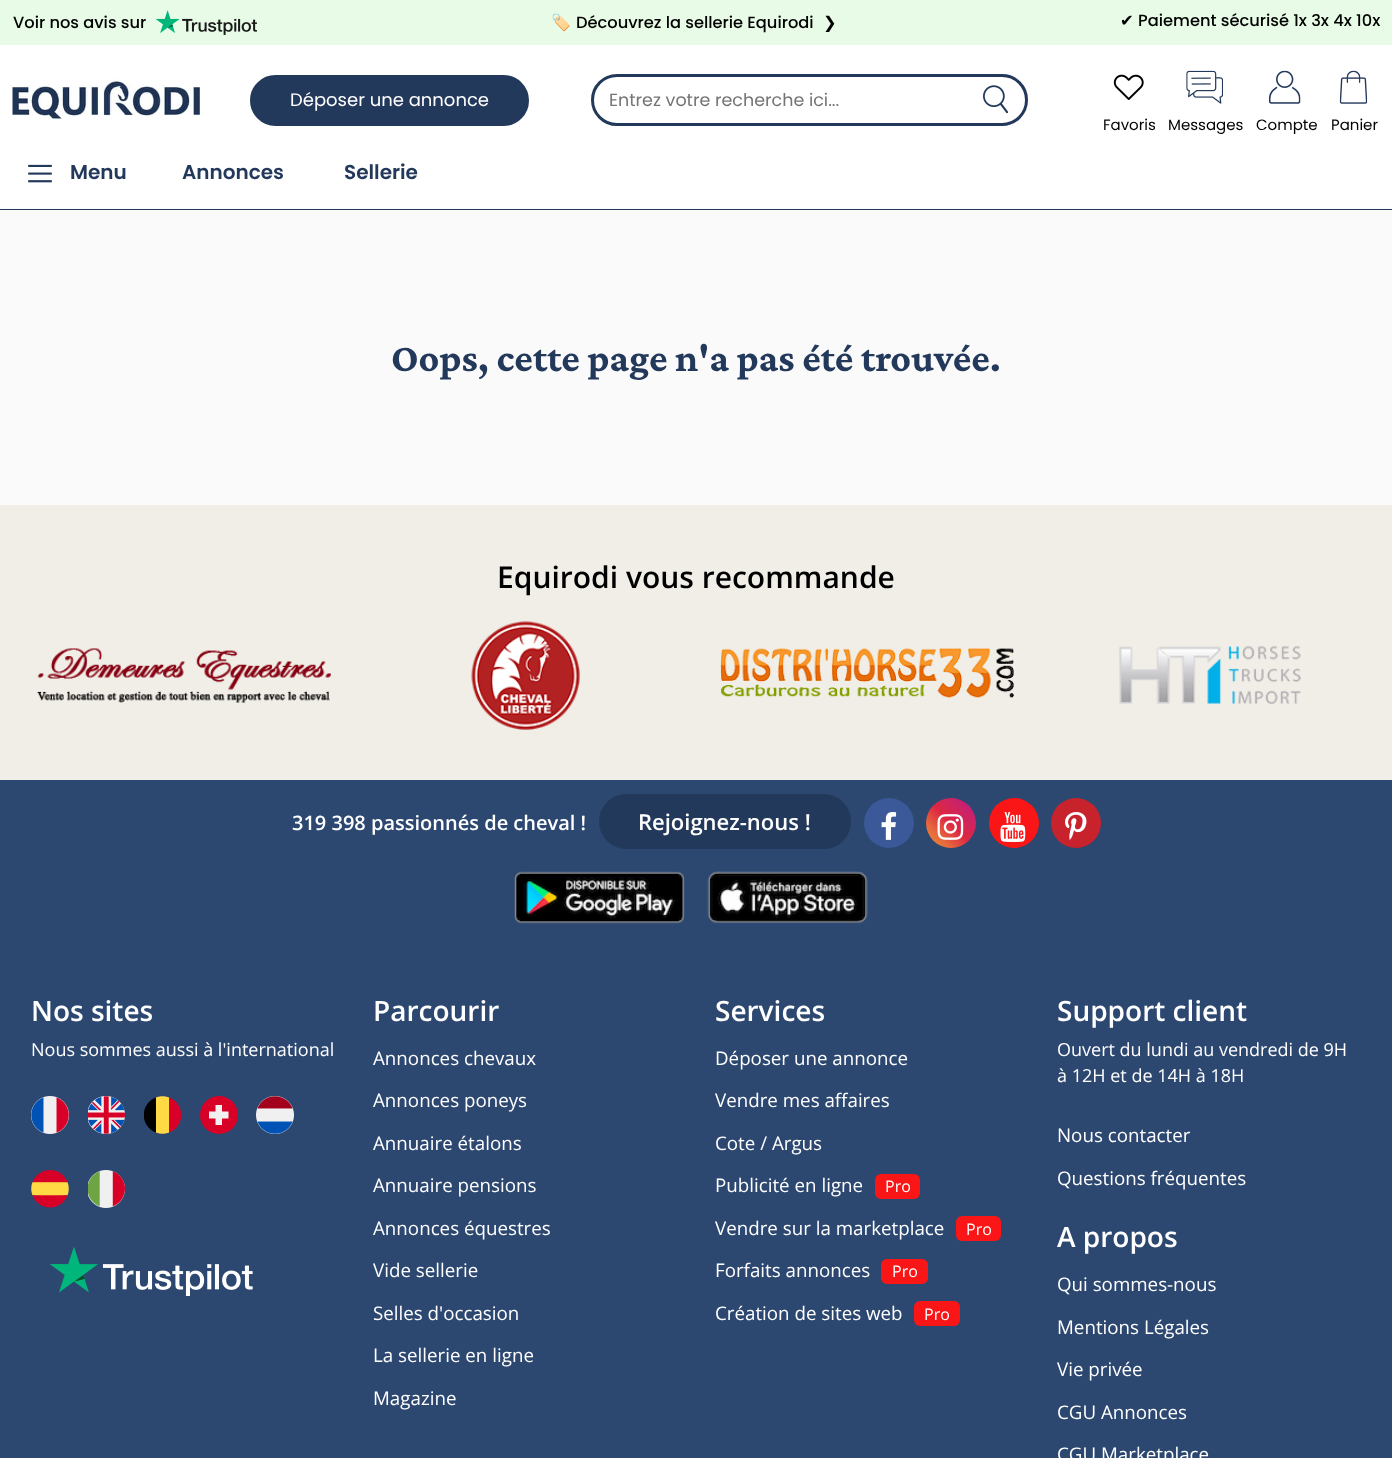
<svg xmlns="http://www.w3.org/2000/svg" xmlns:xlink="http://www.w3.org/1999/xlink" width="1392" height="1458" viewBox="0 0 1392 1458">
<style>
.cls-1{font:500 16.25px Poppins;fill:#000000}
.cls-2{font:16.25px Noto Color Emoji;fill:#000000}
.cls-3{font:16.25px DejaVu Sans;fill:#000000}
.cls-4{font:18px Poppins;fill:#ffffff}
.cls-5{font:17.5px Poppins;fill:#757575}
.cls-6{font:15px Poppins;fill:#000000}
.cls-7{font:600 20px Poppins;fill:#23395b}
.cls-8{font:bold 40px Crimson Pro;fill:#23395b}
.cls-9{font:600 30px Open Sans;fill:#000000}
.cls-10{font:600 20px Open Sans;fill:#ffffff}
.cls-11{font:600 22px Open Sans;fill:#ffffff}
.cls-12{font:600 28px Open Sans;fill:#ffffff}
.cls-13{font:18px Open Sans;fill:#ffffff}
.cls-14{font:18.75px Open Sans;fill:#ffffff}
.cls-15{font:16px Open Sans;fill:#ffffff}
</style>
<defs>
<linearGradient id="g1" gradientUnits="userSpaceOnUse" x1="926" y1="848" x2="976" y2="798"><stop offset="0" stop-color="#f09433"/><stop offset="0.25" stop-color="#e6683c"/><stop offset="0.5" stop-color="#dc2743"/><stop offset="0.75" stop-color="#cc2366"/><stop offset="1" stop-color="#bc1888"/></linearGradient>
</defs>
<rect width="100%" height="100%" fill="#fafafa"/>
<rect fill="#ffffff" x="0" y="45" width="1392" height="164"/>
<rect fill="#23395b" x="0" y="209" width="1392" height="1"/>
<rect fill="#e7fbe6" x="0" y="0" width="1392" height="45"/>
<image xlink:href="image0.png" x="155" y="10" width="102" height="25"/>
<image xlink:href="image1.png" x="12" y="75" width="188" height="50"/>
<rect fill="#23395b" stroke="#23395b" stroke-width="3" x="251.5" y="76.5" width="276" height="48" rx="24"/>
<rect fill="none" stroke="#23395b" stroke-width="3" x="592.5" y="75.5" width="434" height="49" rx="24.5"/>
<image xlink:href="image2.png" x="983" y="85" width="25" height="29"/>
<image xlink:href="image3.png" x="1113" y="74" width="31" height="26"/>
<image xlink:href="image4.png" x="1186" y="70" width="37" height="34"/>
<image xlink:href="image5.png" x="1269" y="70" width="32" height="34"/>
<image xlink:href="image6.png" x="1339" y="70" width="29" height="34"/>
<image xlink:href="image7.png" x="28" y="164" width="24" height="19"/>
<rect fill="#f1eee7" x="0" y="505" width="1392" height="275"/>
<image xlink:href="image8.png" x="36" y="648" width="295" height="55"/>
<image xlink:href="image9.png" x="471" y="621" width="109" height="109"/>
<image xlink:href="image10.png" x="720" y="648" width="294" height="51"/>
<image xlink:href="image11.png" x="1119" y="646" width="182" height="58"/>
<rect fill="#2c4770" x="0" y="780" width="1392" height="678"/>
<rect fill="#23395b" stroke="#23395b" stroke-width="3" x="600.5" y="795.5" width="249" height="52" rx="26"/>
<circle fill="#3b5998" cx="889" cy="823" r="25"/>
<image xlink:href="image12.png" x="881" y="812" width="16" height="28"/>
<circle fill="url(#g1)" cx="951" cy="823" r="25"/>
<image xlink:href="image13.png" x="937" y="814" width="27" height="26"/>
<circle fill="#fa1616" cx="1014" cy="823" r="25"/>
<image xlink:href="image14.png" x="1000" y="812" width="26" height="30"/>
<circle fill="#c8232c" cx="1076" cy="823" r="25"/>
<image xlink:href="image15.png" x="1065" y="812" width="22" height="28"/>
<image xlink:href="image16.png" x="514" y="871" width="171" height="53"/>
<image xlink:href="image17.png" x="707" y="871" width="161" height="53"/>
<image xlink:href="image18.png" x="31" y="1096" width="38" height="38"/>
<image xlink:href="image19.png" x="88" y="1096" width="37" height="38"/>
<image xlink:href="image20.png" x="144" y="1096" width="37" height="38"/>
<circle fill="#d80027" cx="219" cy="1115" r="19"/>
<path fill="#f0f0f0" d="M228.5 1111.5H222V1105H215.5V1111.5H209V1118.5H215.5V1125H222V1118.5H228.5Z"/>
<image xlink:href="image21.png" x="256" y="1096" width="38" height="38"/>
<image xlink:href="image22.png" x="31" y="1170" width="38" height="38"/>
<image xlink:href="image23.png" x="88" y="1170" width="37" height="38"/>
<image xlink:href="image24.png" x="49" y="1246" width="204" height="50"/>
<rect fill="#fa1616" x="875" y="1174" width="45" height="25" rx="6"/>
<rect fill="#fa1616" x="956" y="1216" width="45" height="25" rx="6"/>
<rect fill="#fa1616" x="881" y="1259" width="47" height="25" rx="6"/>
<rect fill="#fa1616" x="914" y="1301" width="46" height="25" rx="6"/>
<text class="cls-1" x="13" y="28">Voir nos avis sur</text>
<text class="cls-2" x="551" y="28">🏷️</text>
<text class="cls-1" x="576" y="28">Découvrez la sellerie Equirodi</text>
<text class="cls-3" x="823" y="28">❯</text>
<text class="cls-3" x="1120" y="26">✔</text>
<text class="cls-1" x="1138" y="26">Paiement sécurisé 1x 3x 4x 10x</text>
<text class="cls-4" x="290" y="106">Déposer une annonce</text>
<text class="cls-5" x="609" y="106">Entrez votre recherche ici...</text>
<text class="cls-6" x="1103" y="130">Favoris</text>
<text class="cls-6" x="1168" y="130">Messages</text>
<text class="cls-6" x="1256" y="130">Compte</text>
<text class="cls-6" x="1331" y="130">Panier</text>
<text class="cls-7" x="70" y="179">Menu</text>
<text class="cls-7" x="182" y="179">Annonces</text>
<text class="cls-7" x="344" y="179">Sellerie</text>
<text class="cls-8" x="391" y="371">Oops, cette page n'a pas été trouvée.</text>
<text class="cls-9" x="497" y="588">Equirodi vous recommande</text>
<text class="cls-10" x="292" y="830">319 398 passionnés de cheval !</text>
<text class="cls-11" x="638" y="830">Rejoignez-nous !</text>
<text class="cls-12" x="31" y="1021">Nos sites</text>
<text class="cls-13" x="31" y="1056">Nous sommes aussi à l'international</text>
<text class="cls-12" x="373" y="1021">Parcourir</text>
<text class="cls-14" x="373" y="1065">Annonces chevaux</text>
<text class="cls-14" x="373" y="1107">Annonces poneys</text>
<text class="cls-14" x="373" y="1150">Annuaire étalons</text>
<text class="cls-14" x="373" y="1192">Annuaire pensions</text>
<text class="cls-14" x="373" y="1235">Annonces équestres</text>
<text class="cls-14" x="373" y="1277">Vide sellerie</text>
<text class="cls-14" x="373" y="1320">Selles d'occasion</text>
<text class="cls-14" x="373" y="1362">La sellerie en ligne</text>
<text class="cls-14" x="373" y="1405">Magazine</text>
<text class="cls-12" x="715" y="1021">Services</text>
<text class="cls-14" x="715" y="1065">Déposer une annonce</text>
<text class="cls-14" x="715" y="1107">Vendre mes affaires</text>
<text class="cls-14" x="715" y="1150">Cote / Argus</text>
<text class="cls-14" x="715" y="1192">Publicité en ligne</text>
<text class="cls-15" x="885" y="1192">Pro</text>
<text class="cls-14" x="715" y="1235">Vendre sur la marketplace</text>
<text class="cls-15" x="966" y="1235">Pro</text>
<text class="cls-14" x="715" y="1277">Forfaits annonces</text>
<text class="cls-15" x="892" y="1277">Pro</text>
<text class="cls-14" x="715" y="1320">Création de sites web</text>
<text class="cls-15" x="924" y="1320">Pro</text>
<text class="cls-12" x="1057" y="1021">Support client</text>
<text class="cls-13"><tspan x="1057" y="1056">Ouvert du lundi au vendredi de 9H</tspan><tspan x="1057" y="1082">à 12H et de 14H à 18H</tspan></text>
<text class="cls-14" x="1057" y="1142">Nous contacter</text>
<text class="cls-14" x="1057" y="1185">Questions fréquentes</text>
<text class="cls-12" x="1057" y="1247">A propos</text>
<text class="cls-14" x="1057" y="1291">Qui sommes-nous</text>
<text class="cls-14" x="1057" y="1334">Mentions Légales</text>
<text class="cls-14" x="1057" y="1376">Vie privée</text>
<text class="cls-14" x="1057" y="1419">CGU Annonces</text>
<text class="cls-14" x="1057" y="1461">CGU Marketplace</text>
</svg>
